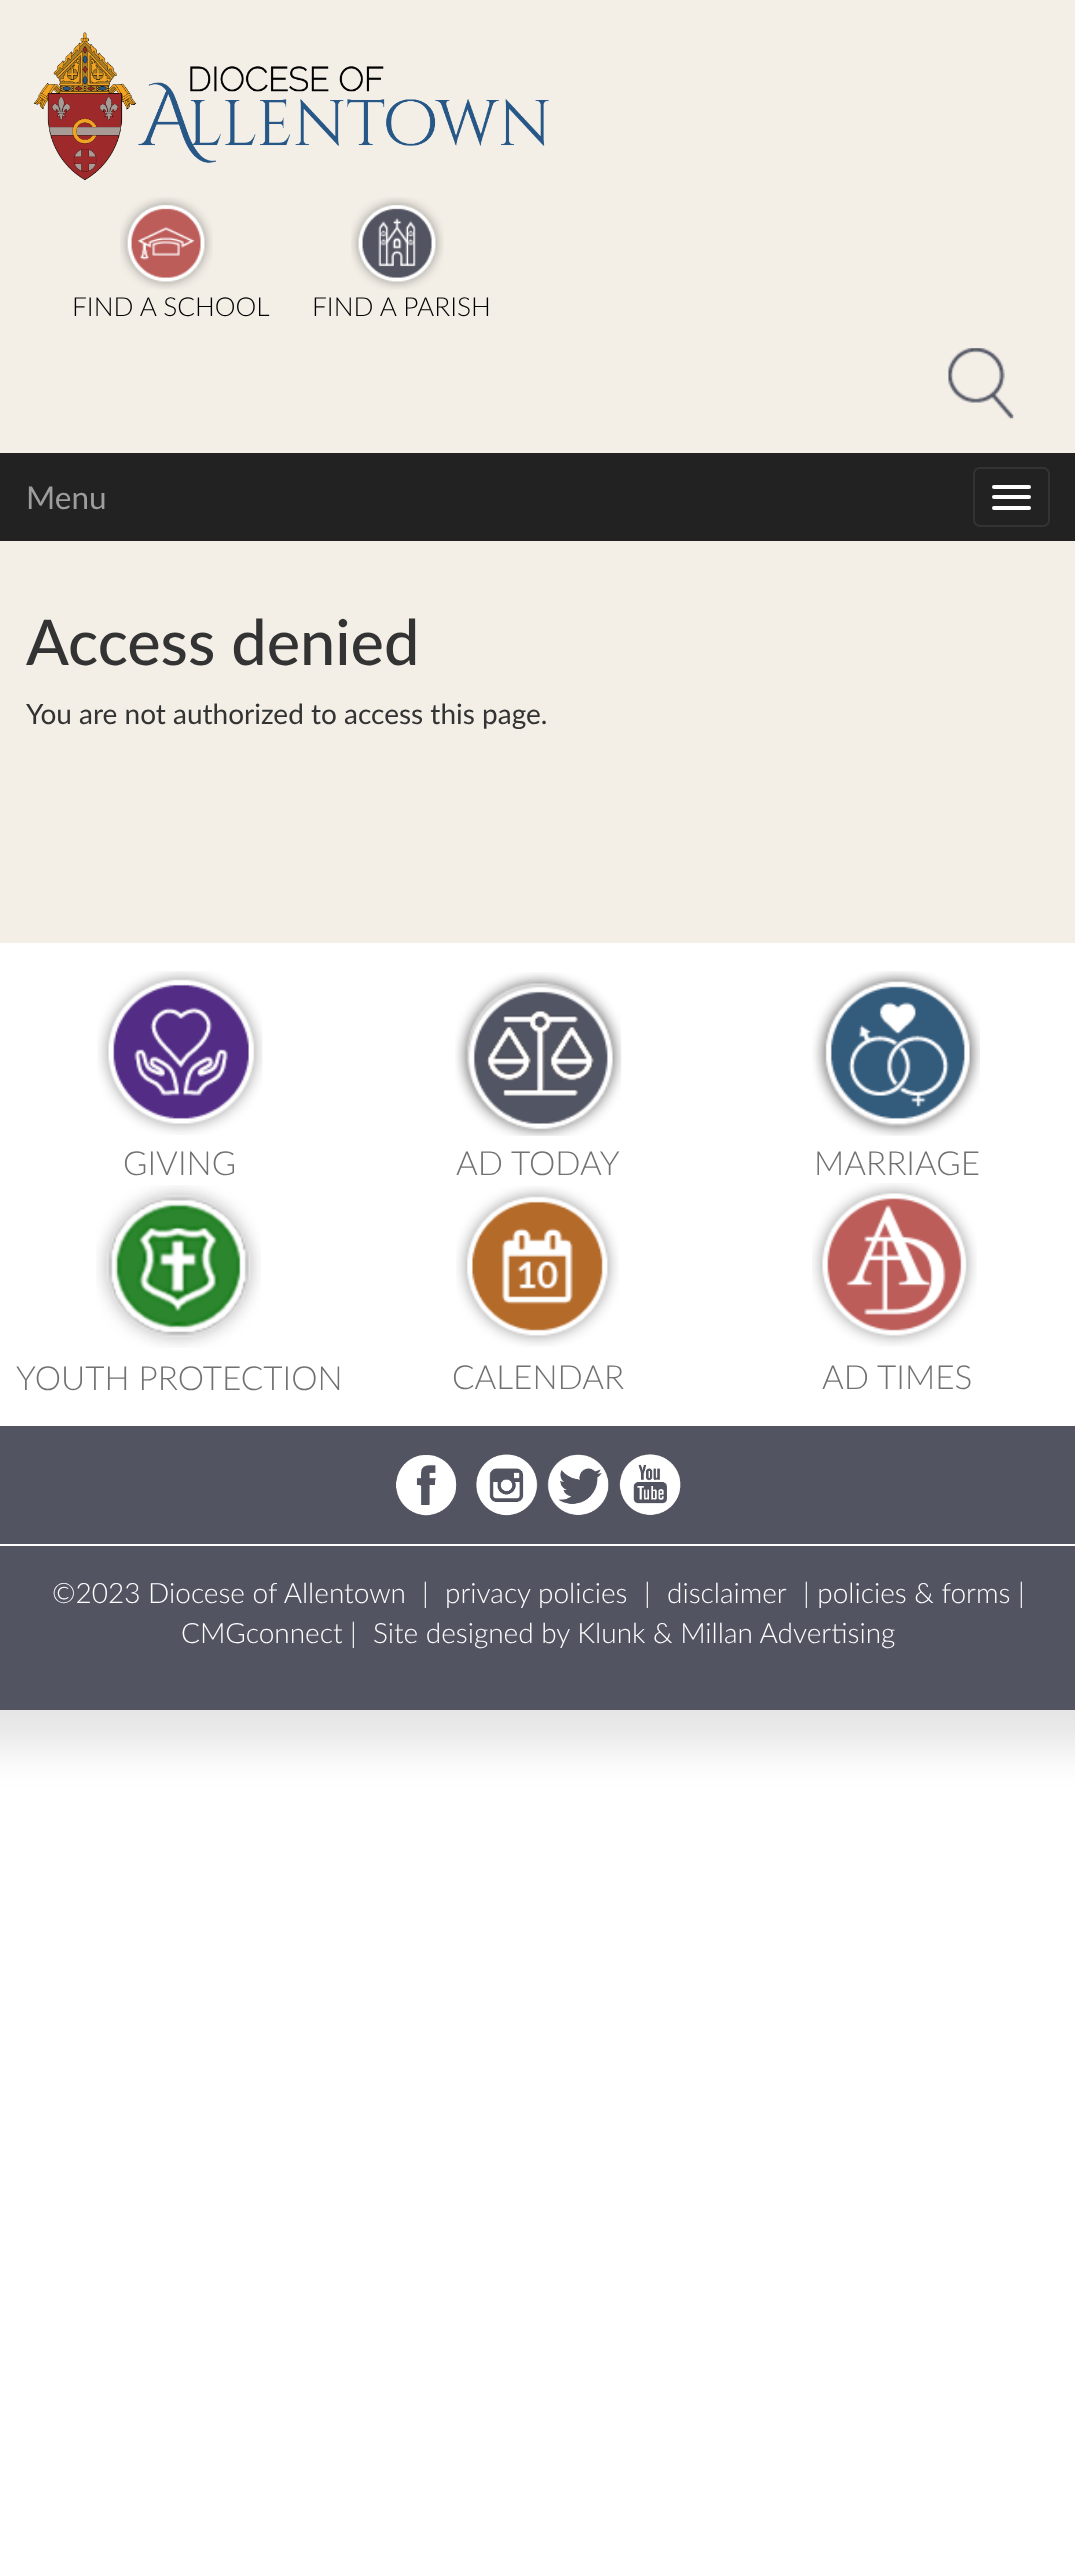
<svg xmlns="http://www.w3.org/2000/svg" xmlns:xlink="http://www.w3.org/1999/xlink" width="1075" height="2555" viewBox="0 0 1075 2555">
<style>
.cls-1{font:300 26.25px Lato;fill:#000000}
.cls-2{font:31.5px Lato;fill:#9d9d9d}
.cls-3{font:500 63px Lato;fill:#333333}
.cls-4{font:28px Lato;fill:#333333}
.cls-5{font:300 33.25px Lato;fill:#717171}
.cls-6{font:300 28px Lato;fill:#ffffff}
</style>
<rect width="100%" height="100%" fill="#ffffff"/>
<rect fill="#000000" fill-opacity="0.1" filter="blur(21px)" x="-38" y="-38" width="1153" height="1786"/>
<rect fill="#f3efe7" x="0" y="0" width="1075" height="943"/>
<image xlink:href="image0.png" x="33" y="32" width="516" height="149"/>
<image xlink:href="image1.png" x="120" y="197" width="93" height="93"/>
<image xlink:href="image2.png" x="351" y="197" width="93" height="93"/>
<image xlink:href="image3.png" x="948" y="348" width="66" height="71"/>
<rect fill="#222222" x="0" y="453" width="1075" height="88"/>
<rect fill="none" stroke="#333333" stroke-width="2" x="974" y="468" width="75" height="58" rx="6"/>
<rect fill="#ffffff" x="992" y="485" width="39" height="4" rx="2"/>
<rect fill="#ffffff" x="992" y="495" width="39" height="4" rx="2"/>
<rect fill="#ffffff" x="992" y="506" width="39" height="4" rx="2"/>
<rect fill="#ffffff" x="0" y="943" width="1075" height="483"/>
<image xlink:href="image4.png" x="97" y="971" width="166" height="164"/>
<image xlink:href="image5.png" x="455" y="972" width="167" height="164"/>
<image xlink:href="image6.png" x="812" y="971" width="168" height="165"/>
<image xlink:href="image7.png" x="96" y="1185" width="165" height="163"/>
<image xlink:href="image8.png" x="456" y="1186" width="163" height="161"/>
<image xlink:href="image9.png" x="812" y="1183" width="165" height="164"/>
<rect fill="#525461" x="0" y="1426" width="1075" height="284"/>
<image xlink:href="image10.png" x="396" y="1455" width="61" height="61"/>
<image xlink:href="image11.png" x="476" y="1454" width="62" height="62"/>
<image xlink:href="image12.png" x="547" y="1454" width="62" height="61"/>
<image xlink:href="image13.png" x="619" y="1454" width="62" height="61"/>
<rect fill="#ffffff" x="0" y="1544" width="1075" height="2"/>
<text class="cls-1" x="72" y="316">FIND A SCHOOL</text>
<text class="cls-1" x="312" y="316">FIND A PARISH</text>
<text class="cls-2" x="26" y="509">Menu</text>
<text class="cls-3" x="26" y="665">Access denied</text>
<text class="cls-4" x="26" y="724">You are not authorized to access this page.</text>
<text class="cls-5" x="123" y="1175">GIVING</text>
<text class="cls-5" x="456" y="1175">AD TODAY</text>
<text class="cls-5" x="814" y="1175">MARRIAGE</text>
<text class="cls-5" x="16" y="1390">YOUTH PROTECTION</text>
<text class="cls-5" x="452" y="1389">CALENDAR</text>
<text class="cls-5" x="822" y="1389">AD TIMES</text>
<text class="cls-6" x="52" y="1603">©2023 Diocese of Allentown</text>
<text class="cls-6" x="422" y="1603">|</text>
<text class="cls-6" x="445" y="1603">privacy policies</text>
<text class="cls-6" x="644" y="1603">|</text>
<text class="cls-6" x="667" y="1603">disclaimer</text>
<text class="cls-6" x="803" y="1603">| policies &amp; forms |</text>
<text class="cls-6" x="181" y="1643">CMGconnect |</text>
<text class="cls-6" x="373" y="1643">Site designed by Klunk &amp; Millan Advertising</text>
</svg>
